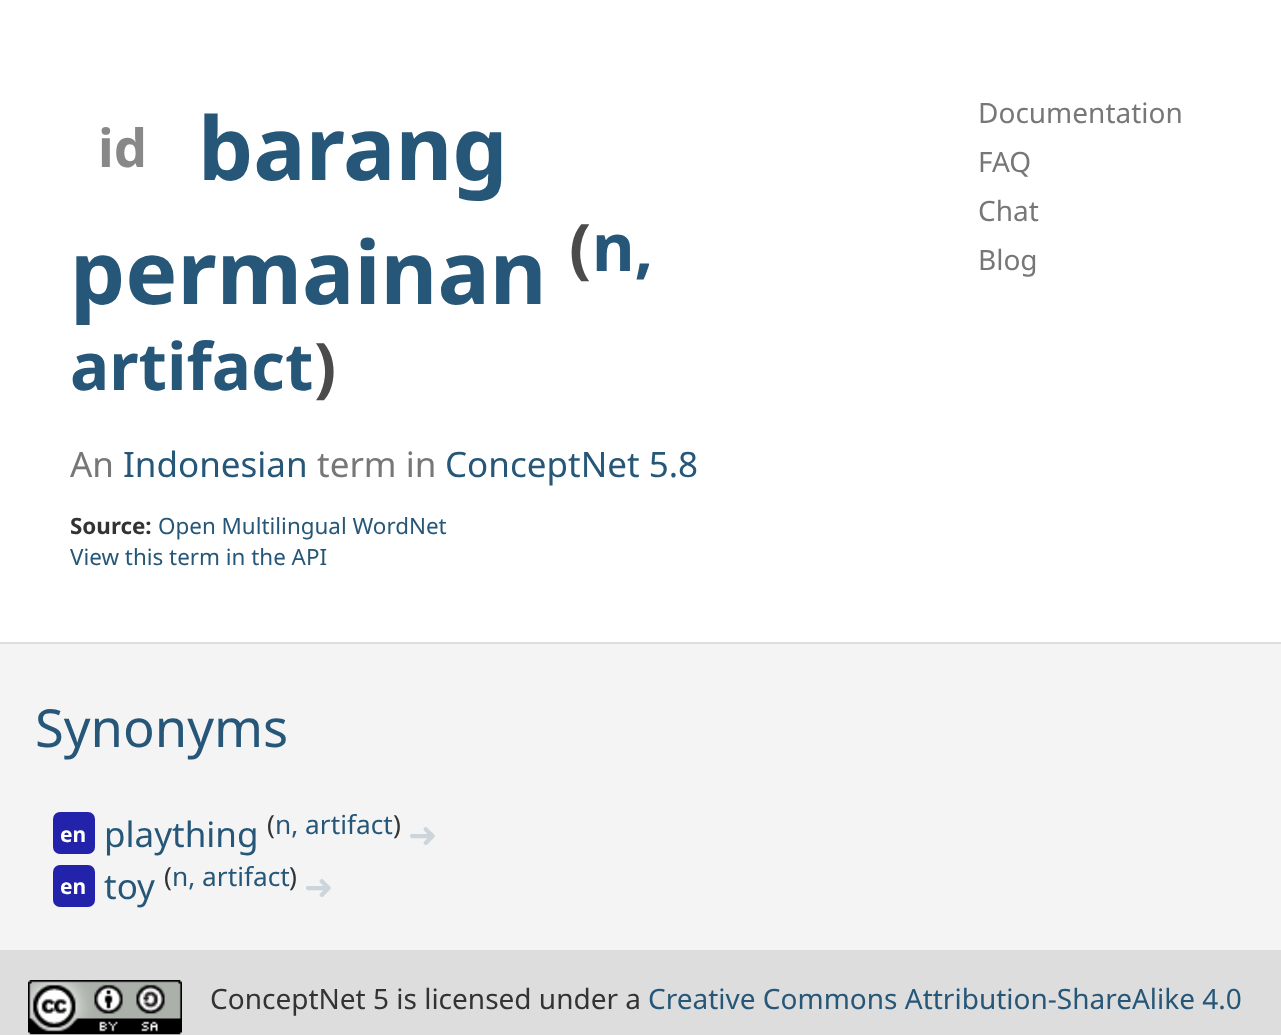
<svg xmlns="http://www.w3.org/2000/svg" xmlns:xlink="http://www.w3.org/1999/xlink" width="1281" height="1035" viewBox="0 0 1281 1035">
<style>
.cls-1{font:bold 52.5px Noto Sans;fill:#888888}
.cls-2{font:bold 87.5px Noto Sans;fill:#265778}
.cls-3{font:bold 65.5px Noto Sans;fill:#4b4b4b}
.cls-4{font:bold 65.5px Noto Sans;fill:#265778}
.cls-5{font:35px Noto Sans;fill:#777777}
.cls-6{font:35px Noto Sans;fill:#265778}
.cls-7{font:bold 22.4px Noto Sans;fill:#333333}
.cls-8{font:22.4px Noto Sans;fill:#265778}
.cls-9{font:28px Noto Sans;fill:#777777}
.cls-10{font:52.5px Noto Sans;fill:#265778}
.cls-11{font:bold 21px Noto Sans;fill:#ffffff}
.cls-12{font:26.25px Noto Sans;fill:#333333}
.cls-13{font:26.25px Noto Sans;fill:#265778}
.cls-14{font:35px DejaVu Sans;fill:#cbd5db}
.cls-15{font:28px Noto Sans;fill:#333333}
.cls-16{font:28px Noto Sans;fill:#265778}
</style>
<rect width="100%" height="100%" fill="#ffffff"/>
<rect fill="#f4f4f4" x="0" y="644" width="1281" height="306"/>
<rect fill="#dddddd" x="0" y="642" width="1281" height="2"/>
<rect fill="#dddddd" x="0" y="950" width="1281" height="85"/>
<rect fill="#2222aa" x="53" y="812" width="42" height="42" rx="7"/>
<rect fill="#2222aa" x="53" y="865" width="42" height="42" rx="7"/>
<image xlink:href="image0.png" x="28" y="980" width="154" height="55"/>
<text class="cls-1" x="98" y="167">id</text>
<text class="cls-2" x="198" y="180">barang</text>
<text class="cls-2" x="70" y="304">permainan</text>
<text class="cls-3" x="569" y="271">(</text>
<text class="cls-4" x="592" y="271">n,</text>
<text class="cls-4" x="70" y="390">artifact</text>
<text class="cls-3" x="314" y="390">)</text>
<text class="cls-5" x="70" y="477">An</text>
<text class="cls-6" x="123" y="477">Indonesian</text>
<text class="cls-5" x="317" y="477">term in</text>
<text class="cls-6" x="445" y="477">ConceptNet 5.8</text>
<text class="cls-7" x="70" y="534">Source:</text>
<text class="cls-8" x="158" y="534">Open Multilingual WordNet</text>
<text class="cls-8" x="70" y="565">View this term in the API</text>
<text class="cls-9"><tspan x="978" y="123">Documentation</tspan><tspan x="978" y="172">FAQ</tspan><tspan x="978" y="221">Chat</tspan><tspan x="978" y="270">Blog</tspan></text>
<text class="cls-10" x="35" y="747">Synonyms</text>
<text class="cls-11" x="60" y="842">en</text>
<text class="cls-6" x="104" y="847">plaything</text>
<text class="cls-12" x="267" y="834">(</text>
<text class="cls-13" x="275" y="834">n, artifact</text>
<text class="cls-12" x="393" y="834">)</text>
<text class="cls-14" x="408" y="847">➜</text>
<text class="cls-11" x="60" y="894">en</text>
<text class="cls-6" x="104" y="899">toy</text>
<text class="cls-12" x="164" y="886">(</text>
<text class="cls-13" x="172" y="886">n, artifact</text>
<text class="cls-12" x="289" y="886">)</text>
<text class="cls-14" x="304" y="899">➜</text>
<text class="cls-15" x="210" y="1009">ConceptNet 5 is licensed under a</text>
<text class="cls-16" x="648" y="1009">Creative Commons Attribution-ShareAlike 4.0</text>
</svg>
